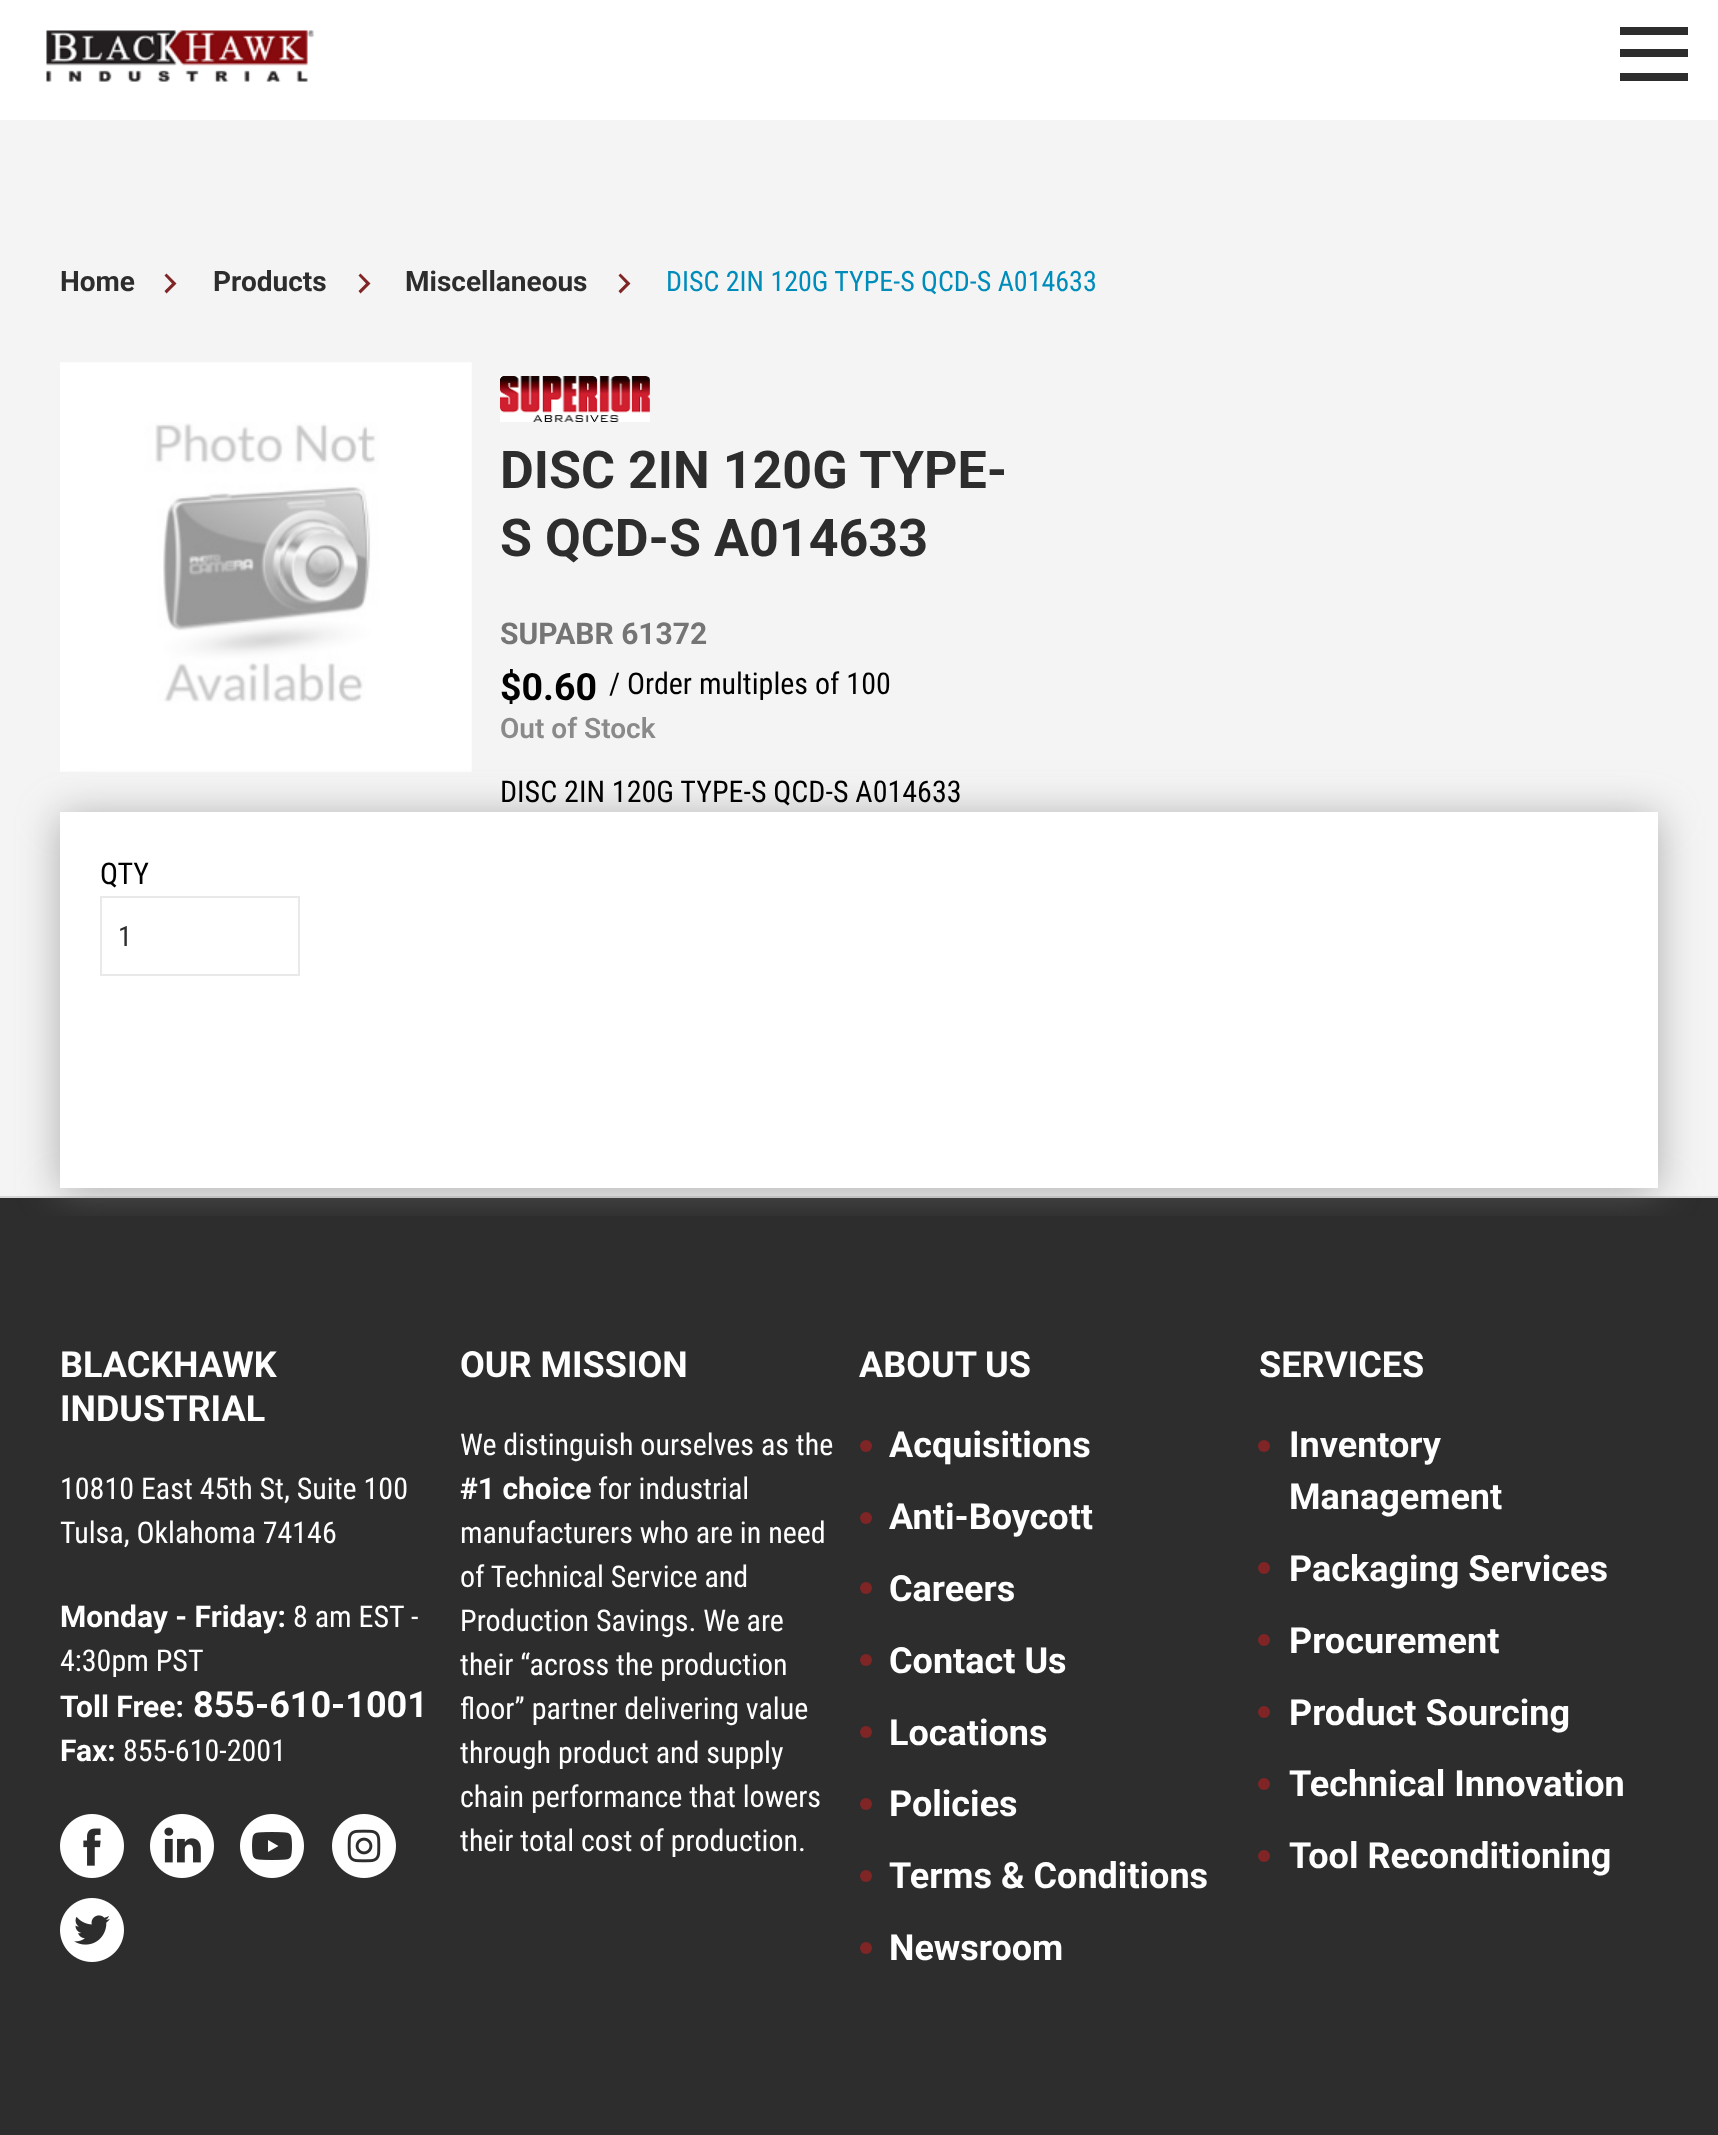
<svg xmlns="http://www.w3.org/2000/svg" xmlns:xlink="http://www.w3.org/1999/xlink" width="1718" height="2135" viewBox="0 0 1718 2135">
<style>
.cls-1{font:bold 28px Roboto;fill:#2d2d2d}
.cls-2{font:28px Roboto Condensed;fill:#008cba}
.cls-3{font:bold 52px Roboto;fill:#2d2d2d}
.cls-4{font:bold 30px Roboto;fill:#757575}
.cls-5{font:bold 37.5px Roboto;fill:#000000}
.cls-6{font:30px Roboto Condensed;fill:#000000}
.cls-7{font:600 28px Roboto;fill:#8a8a8a}
.cls-8{font:28px Roboto Condensed;fill:#2d2d2d}
.cls-9{font:bold 36px Roboto;fill:#ffffff}
.cls-10{font:30px Roboto Condensed;fill:#ffffff}
.cls-11{font:bold 30px Roboto;fill:#ffffff}
</style>
<defs>
<clipPath id="clip1"><rect x="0" y="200" width="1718" height="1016"/></clipPath>
</defs>
<rect width="100%" height="100%" fill="#f4f4f4"/>
<rect fill="#ffffff" x="0" y="0" width="1718" height="120"/>
<image xlink:href="image0.png" x="46" y="30" width="268" height="52"/>
<rect fill="#2d2d2d" x="1620" y="27" width="68" height="8"/>
<rect fill="#2d2d2d" x="1620" y="49" width="68" height="8"/>
<rect fill="#2d2d2d" x="1620" y="73" width="68" height="8"/>
<path fill="#7f2526" d="M166.5 273.5L164.5 275.5L172 283.5L164.5 291L166.5 293.5L176.5 283.5Z"/>
<path fill="#7f2526" d="M360.5 273.5L358.5 275.5L366 283.5L358.5 291L360.5 293.5L370.5 283.5Z"/>
<path fill="#7f2526" d="M620.5 273.5L618.5 275.5L626 283.5L618.5 291L620.5 293.5L630.5 283.5Z"/>
<image xlink:href="image1.png" x="60" y="362" width="412" height="410"/>
<image xlink:href="image2.png" x="500" y="376" width="150" height="46"/>
<rect fill="#2d2d2d" x="0" y="1198" width="1718" height="937"/>
<rect fill="#d7d7d7" x="0" y="1196" width="1718" height="2"/>
<g clip-path="url(#clip1)">
<rect fill="#7b7b7b" fill-opacity="0.6" filter="blur(20px)" x="60" y="816" width="1598" height="376"/>
</g>
<rect fill="#ffffff" x="60" y="812" width="1598" height="376"/>
<rect fill="none" stroke="#eae9e9" stroke-width="2" x="101" y="897" width="198" height="78"/>
<image xlink:href="image3.png" x="60" y="1814" width="64" height="64"/>
<image xlink:href="image4.png" x="150" y="1814" width="64" height="64"/>
<image xlink:href="image5.png" x="240" y="1814" width="64" height="64"/>
<image xlink:href="image6.png" x="332" y="1814" width="64" height="64"/>
<image xlink:href="image7.png" x="60" y="1898" width="64" height="64"/>
<circle fill="#7f2526" cx="866" cy="1446" r="6"/>
<circle fill="#7f2526" cx="866" cy="1518" r="6"/>
<circle fill="#7f2526" cx="866" cy="1588" r="6"/>
<circle fill="#7f2526" cx="866" cy="1660" r="6"/>
<circle fill="#7f2526" cx="866" cy="1732" r="6"/>
<circle fill="#7f2526" cx="866" cy="1804" r="6"/>
<circle fill="#7f2526" cx="866" cy="1876" r="6"/>
<circle fill="#7f2526" cx="866" cy="1948" r="6"/>
<circle fill="#7f2526" cx="1264" cy="1446" r="6"/>
<circle fill="#7f2526" cx="1264" cy="1568" r="6"/>
<circle fill="#7f2526" cx="1264" cy="1640" r="6"/>
<circle fill="#7f2526" cx="1264" cy="1712" r="6"/>
<circle fill="#7f2526" cx="1264" cy="1784" r="6"/>
<circle fill="#7f2526" cx="1264" cy="1856" r="6"/>
<text class="cls-1" x="60" y="291">Home</text>
<text class="cls-1" x="213" y="291">Products</text>
<text class="cls-1" x="405" y="291">Miscellaneous</text>
<text class="cls-2" x="666" y="291">DISC 2IN 120G TYPE-S QCD-S A014633</text>
<text class="cls-3"><tspan x="500" y="488">DISC 2IN 120G TYPE-</tspan><tspan x="500" y="556">S QCD-S A014633</tspan></text>
<text class="cls-4" x="500" y="644">SUPABR 61372</text>
<text class="cls-5" x="500" y="700">$0.60</text>
<text class="cls-6" x="609" y="694">/ Order multiples of 100</text>
<text class="cls-7" x="500" y="738">Out of Stock</text>
<text class="cls-6" x="500" y="802">DISC 2IN 120G TYPE-S QCD-S A014633</text>
<text class="cls-6" x="100" y="884">QTY</text>
<text class="cls-8" x="118" y="946">1</text>
<text class="cls-9"><tspan x="60" y="1377">BLACKHAWK</tspan><tspan x="60" y="1421">INDUSTRIAL</tspan></text>
<text class="cls-10"><tspan x="60" y="1499">10810 East 45th St, Suite 100</tspan><tspan x="60" y="1543">Tulsa, Oklahoma 74146</tspan></text>
<text class="cls-11" x="60" y="1627">Monday - Friday:</text>
<text class="cls-10" x="293" y="1627">8 am EST -</text>
<text class="cls-10" x="60" y="1671">4:30pm PST</text>
<text class="cls-11" x="60" y="1717">Toll Free:</text>
<text class="cls-9" x="193" y="1717">855-610-1001</text>
<text class="cls-11" x="60" y="1761">Fax:</text>
<text class="cls-10" x="123" y="1761">855-610-2001</text>
<text class="cls-9" x="460" y="1377">OUR MISSION</text>
<text class="cls-10" x="460" y="1455">We distinguish ourselves as the</text>
<text class="cls-11" x="460" y="1499">#1 choice</text>
<text class="cls-10" x="598" y="1499">for industrial</text>
<text class="cls-10"><tspan x="460" y="1543">manufacturers who are in need</tspan><tspan x="460" y="1587">of Technical Service and</tspan><tspan x="460" y="1631">Production Savings. We are</tspan><tspan x="460" y="1675">their “across the production</tspan><tspan x="460" y="1719">floor” partner delivering value</tspan><tspan x="460" y="1763">through product and supply</tspan><tspan x="460" y="1807">chain performance that lowers</tspan><tspan x="460" y="1851">their total cost of production.</tspan></text>
<text class="cls-9" x="859" y="1377">ABOUT US</text>
<text class="cls-9" x="889" y="1457">Acquisitions</text>
<text class="cls-9" x="889" y="1529">Anti-Boycott</text>
<text class="cls-9" x="889" y="1601">Careers</text>
<text class="cls-9" x="889" y="1673">Contact Us</text>
<text class="cls-9"><tspan x="889" y="1745">Locations</tspan><tspan x="889" y="1816">Policies</tspan></text>
<text class="cls-9" x="889" y="1888">Terms &amp; Conditions</text>
<text class="cls-9" x="889" y="1960">Newsroom</text>
<text class="cls-9" x="1259" y="1377">SERVICES</text>
<text class="cls-9"><tspan x="1289" y="1457">Inventory</tspan><tspan x="1289" y="1509">Management</tspan></text>
<text class="cls-9" x="1289" y="1581">Packaging Services</text>
<text class="cls-9" x="1289" y="1653">Procurement</text>
<text class="cls-9"><tspan x="1289" y="1725">Product Sourcing</tspan><tspan x="1289" y="1796">Technical Innovation</tspan></text>
<text class="cls-9" x="1289" y="1868">Tool Reconditioning</text>
</svg>
